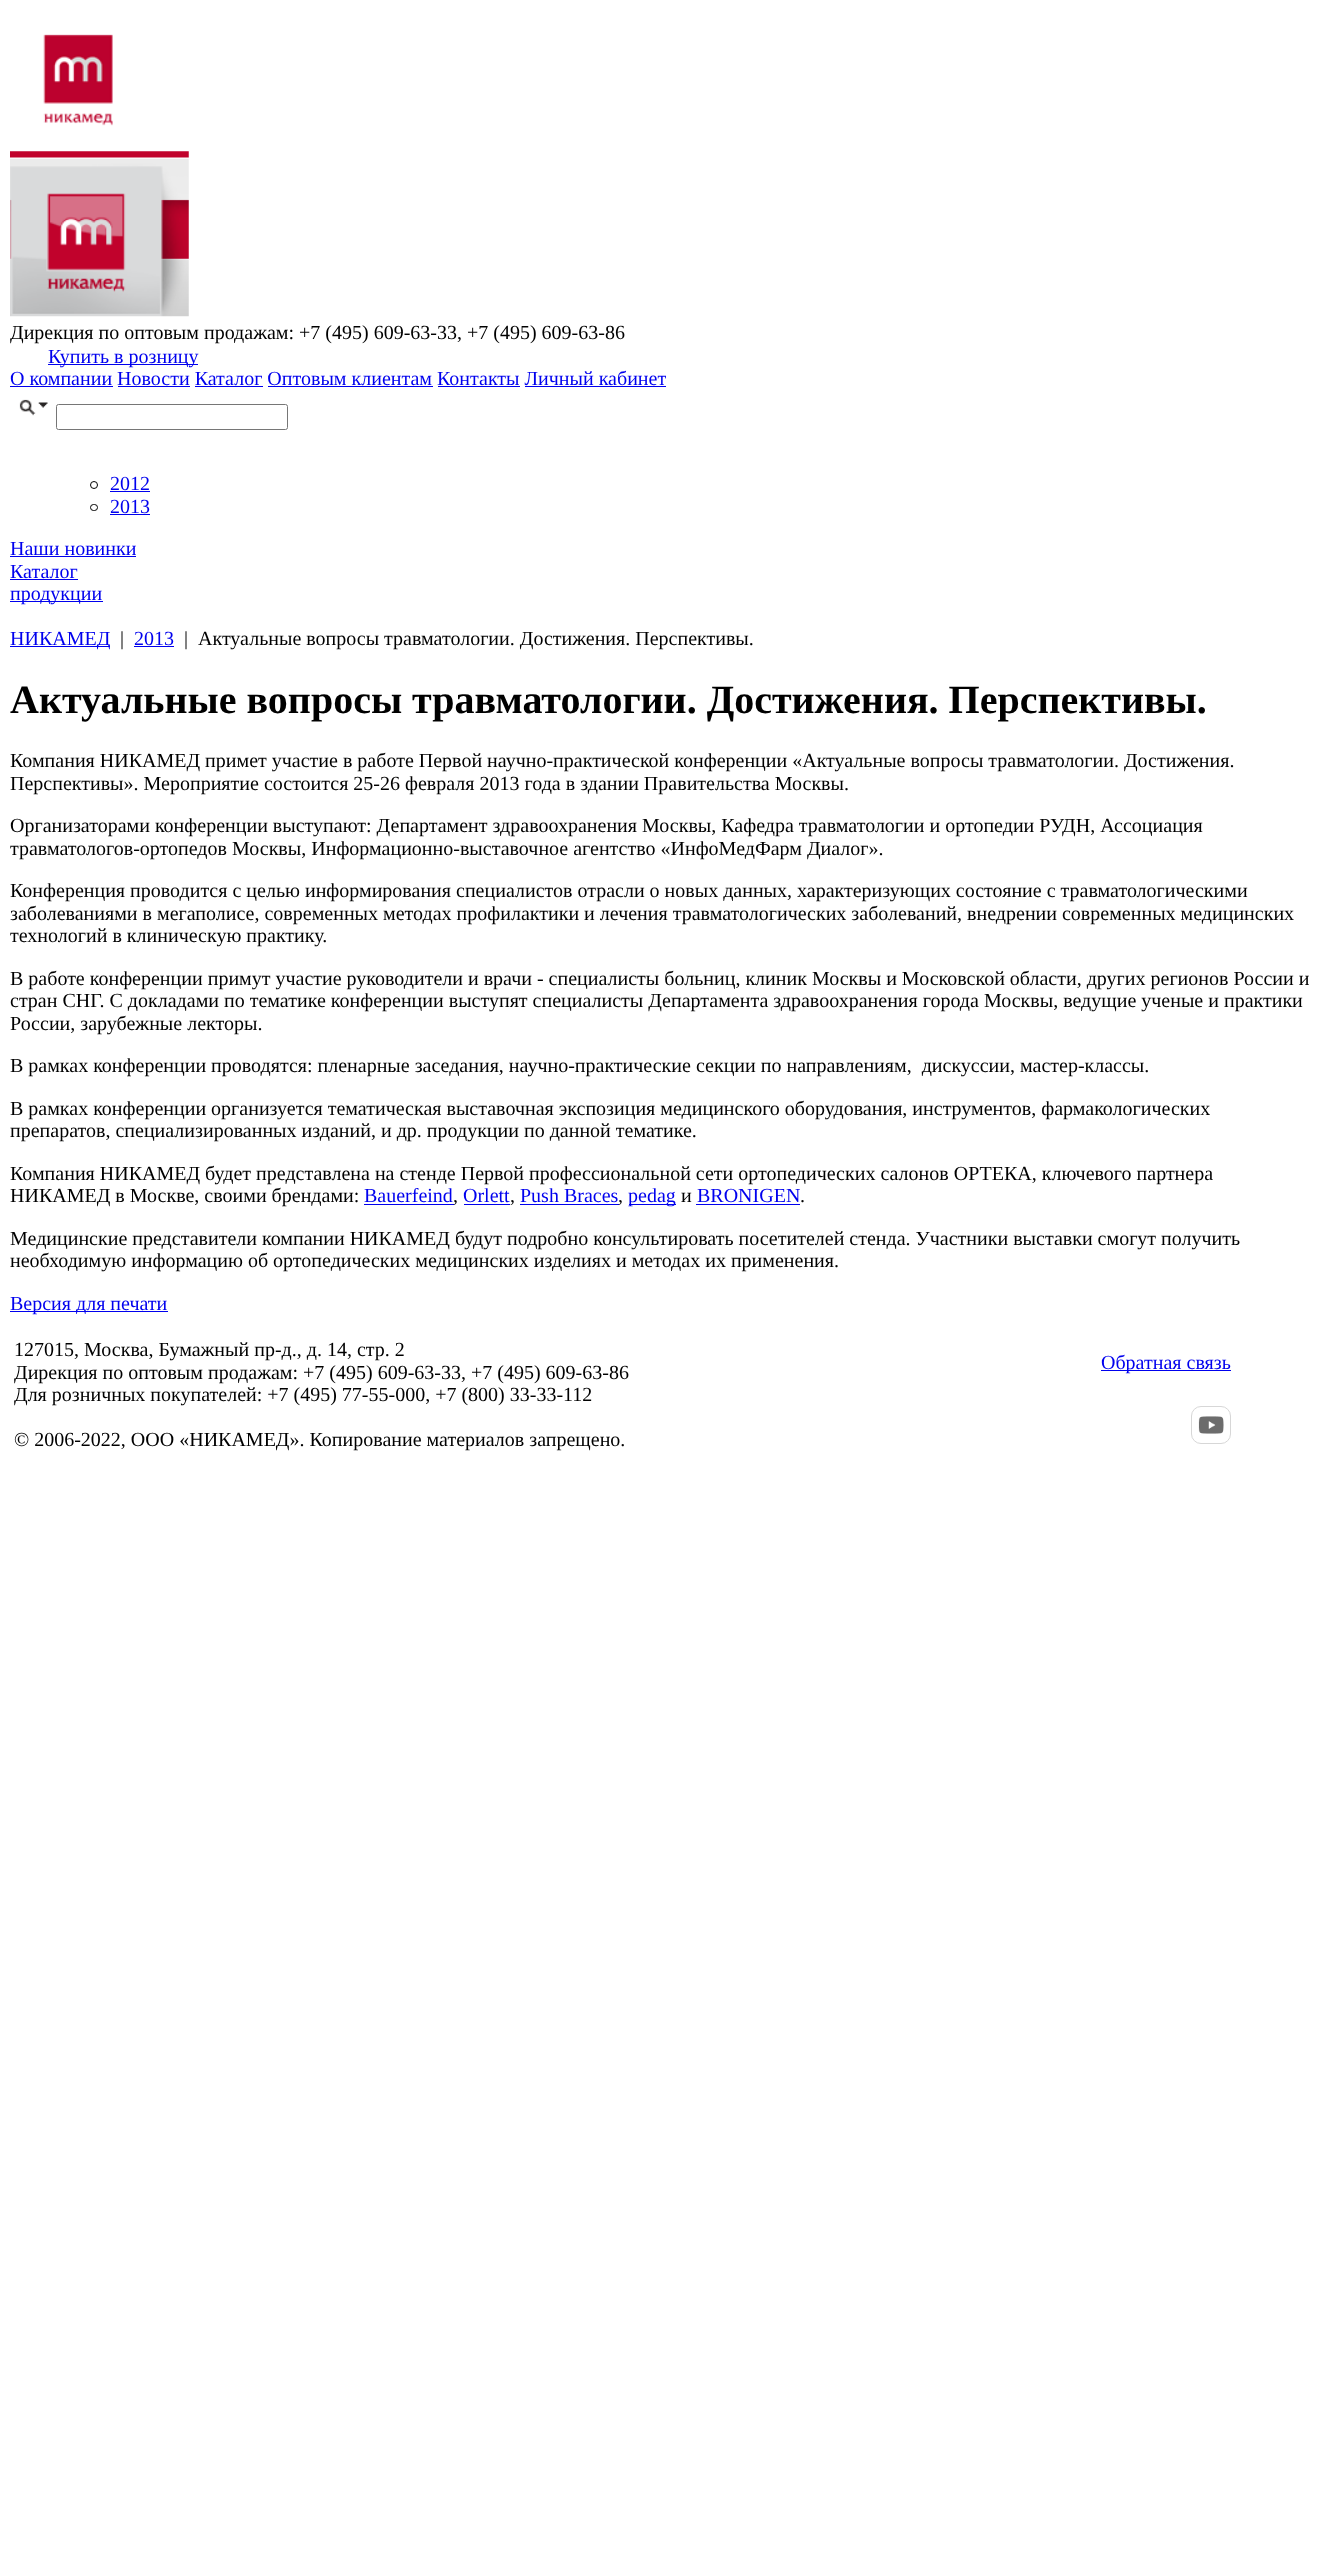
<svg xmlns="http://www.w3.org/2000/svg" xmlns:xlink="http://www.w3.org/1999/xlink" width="1322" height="2568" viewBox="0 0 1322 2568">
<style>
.cls-1{font:20px Liberation Serif;fill:#000000}
.cls-2{font:20px Liberation Serif;fill:#0000ee}
.cls-3{font:bold 40px Liberation Serif;fill:#000000}
</style>
<rect width="100%" height="100%" fill="#ffffff"/>
<image xlink:href="image0.png" x="43" y="34" width="70" height="92"/>
<image xlink:href="image1.png" x="10" y="151" width="179" height="166"/>
<rect fill="#0000ee" x="48" y="364" width="150" height="1"/>
<rect fill="#0000ee" x="10" y="386" width="103" height="1"/>
<rect fill="#0000ee" x="118" y="386" width="72" height="1"/>
<rect fill="#0000ee" x="195" y="386" width="68" height="1"/>
<rect fill="#0000ee" x="268" y="386" width="165" height="1"/>
<rect fill="#0000ee" x="438" y="386" width="82" height="1"/>
<rect fill="#0000ee" x="525" y="386" width="141" height="1"/>
<image xlink:href="image2.png" x="19" y="399" width="29" height="17"/>
<rect fill="none" stroke="#767676" x="56.5" y="404.5" width="231" height="25" rx="2"/>
<circle fill="none" stroke="#000000" cx="94" cy="485" r="3.5"/>
<rect fill="#0000ee" x="110" y="491" width="40" height="1"/>
<rect fill="none" stroke="#000000" x="90.5" y="504.5" width="7" height="6" rx="3"/>
<rect fill="#0000ee" x="110" y="514" width="40" height="1"/>
<rect fill="#0000ee" x="10" y="556" width="126" height="1"/>
<rect fill="#0000ee" x="10" y="579" width="68" height="1"/>
<rect fill="#0000ee" x="10" y="601" width="93" height="1"/>
<rect fill="#0000ee" x="10" y="646" width="100" height="1"/>
<rect fill="#0000ee" x="134" y="646" width="40" height="1"/>
<rect fill="#0000ee" x="364" y="1204" width="90" height="1"/>
<rect fill="#0000ee" x="464" y="1204" width="46" height="1"/>
<rect fill="#0000ee" x="520" y="1204" width="99" height="1"/>
<rect fill="#0000ee" x="629" y="1204" width="47" height="1"/>
<rect fill="#0000ee" x="696" y="1204" width="104" height="1"/>
<rect fill="#0000ee" x="10" y="1311" width="158" height="1"/>
<rect fill="#0000ee" x="1101" y="1370" width="130" height="1"/>
<rect fill="none" stroke="#d7d7d7" x="1191.5" y="1406.5" width="39" height="37" rx="9.5"/>
<image xlink:href="image3.png" x="1198" y="1416" width="26" height="18"/>
<text class="cls-1" x="10" y="339">Дирекция по оптовым продажам: +7 (495) 609-63-33, +7 (495) 609-63-86</text>
<text class="cls-2" x="48" y="363">Купить в розницу</text>
<text class="cls-2" x="10" y="385">О компании Новости Каталог Оптовым клиентам Контакты Личный кабинет</text>
<text class="cls-2"><tspan x="110" y="490">2012</tspan><tspan x="110" y="513">2013</tspan></text>
<text class="cls-2"><tspan x="10" y="555">Наши новинки</tspan><tspan x="10" y="578">Каталог</tspan><tspan x="10" y="600">продукции</tspan></text>
<text class="cls-2" x="10" y="645">НИКАМЕД</text>
<text class="cls-1" x="120" y="645">|</text>
<text class="cls-2" x="134" y="645">2013</text>
<text class="cls-1" x="184" y="645">|</text>
<text class="cls-1" x="198" y="645">Актуальные вопросы травматологии. Достижения. Перспективы.</text>
<text class="cls-3" x="10" y="713">Актуальные вопросы травматологии. Достижения. Перспективы.</text>
<text class="cls-1"><tspan x="10" y="767">Компания НИКАМЕД примет участие в работе Первой научно-практической конференции «Актуальные вопросы травматологии. Достижения.</tspan><tspan x="10" y="790">Перспективы». Мероприятие состоится 25-26 февраля 2013 года в здании Правительства Москвы.</tspan></text>
<text class="cls-1"><tspan x="10" y="832">Организаторами конференции выступают: Департамент здравоохранения Москвы, Кафедра травматологии и ортопедии РУДН, Ассоциация</tspan><tspan x="10" y="855">травматологов-ортопедов Москвы, Информационно-выставочное агентство «ИнфоМедФарм Диалог».</tspan></text>
<text class="cls-1"><tspan x="10" y="897">Конференция проводится с целью информирования специалистов отрасли о новых данных, характеризующих состояние с травматологическими</tspan><tspan x="10" y="920">заболеваниями в мегаполисе, современных методах профилактики и лечения травматологических заболеваний, внедрении современных медицинских</tspan><tspan x="10" y="942">технологий в клиническую практику.</tspan></text>
<text class="cls-1"><tspan x="10" y="985">В работе конференции примут участие руководители и врачи - специалисты больниц, клиник Москвы и Московской области, других регионов России и</tspan><tspan x="10" y="1007">стран СНГ. С докладами по тематике конференции выступят специалисты Департамента здравоохранения города Москвы, ведущие ученые и практики</tspan><tspan x="10" y="1030">России, зарубежные лекторы.</tspan></text>
<text class="cls-1" xml:space="preserve" x="10" y="1072">В рамках конференции проводятся: пленарные заседания, научно-практические секции по направлениям,  дискуссии, мастер-классы.</text>
<text class="cls-1"><tspan x="10" y="1115">В рамках конференции организуется тематическая выставочная экспозиция медицинского оборудования, инструментов, фармакологических</tspan><tspan x="10" y="1137">препаратов, специализированных изданий, и др. продукции по данной тематике.</tspan></text>
<text class="cls-1"><tspan x="10" y="1180">Компания НИКАМЕД будет представлена на стенде Первой профессиональной сети ортопедических салонов ОРТЕКА, ключевого партнера</tspan><tspan x="10" y="1202">НИКАМЕД в Москве, своими брендами:</tspan></text>
<text class="cls-2" x="364" y="1202">Bauerfeind</text>
<text class="cls-1" x="453" y="1202">,</text>
<text class="cls-2" x="463" y="1202">Orlett</text>
<text class="cls-1" x="510" y="1202">,</text>
<text class="cls-2" x="520" y="1202">Push Braces</text>
<text class="cls-1" x="618" y="1202">,</text>
<text class="cls-2" x="628" y="1202">pedag</text>
<text class="cls-1" x="681" y="1202">и</text>
<text class="cls-2" x="697" y="1202">BRONIGEN</text>
<text class="cls-1" x="800" y="1202">.</text>
<text class="cls-1"><tspan x="10" y="1245">Медицинские представители компании НИКАМЕД будут подробно консультировать посетителей стенда. Участники выставки смогут получить</tspan><tspan x="10" y="1267">необходимую информацию об ортопедических медицинских изделиях и методах их применения.</tspan></text>
<text class="cls-2" x="10" y="1310">Версия для печати</text>
<text class="cls-1"><tspan x="14" y="1356">127015, Москва, Бумажный пр-д., д. 14, стр. 2</tspan><tspan x="14" y="1379">Дирекция по оптовым продажам: +7 (495) 609-63-33, +7 (495) 609-63-86</tspan><tspan x="14" y="1401">Для розничных покупателей: +7 (495) 77-55-000, +7 (800) 33-33-112</tspan></text>
<text class="cls-1" x="14" y="1446">© 2006-2022, ООО «НИКАМЕД». Копирование материалов запрещено.</text>
<text class="cls-2" x="1101" y="1369">Обратная связь</text>
</svg>
